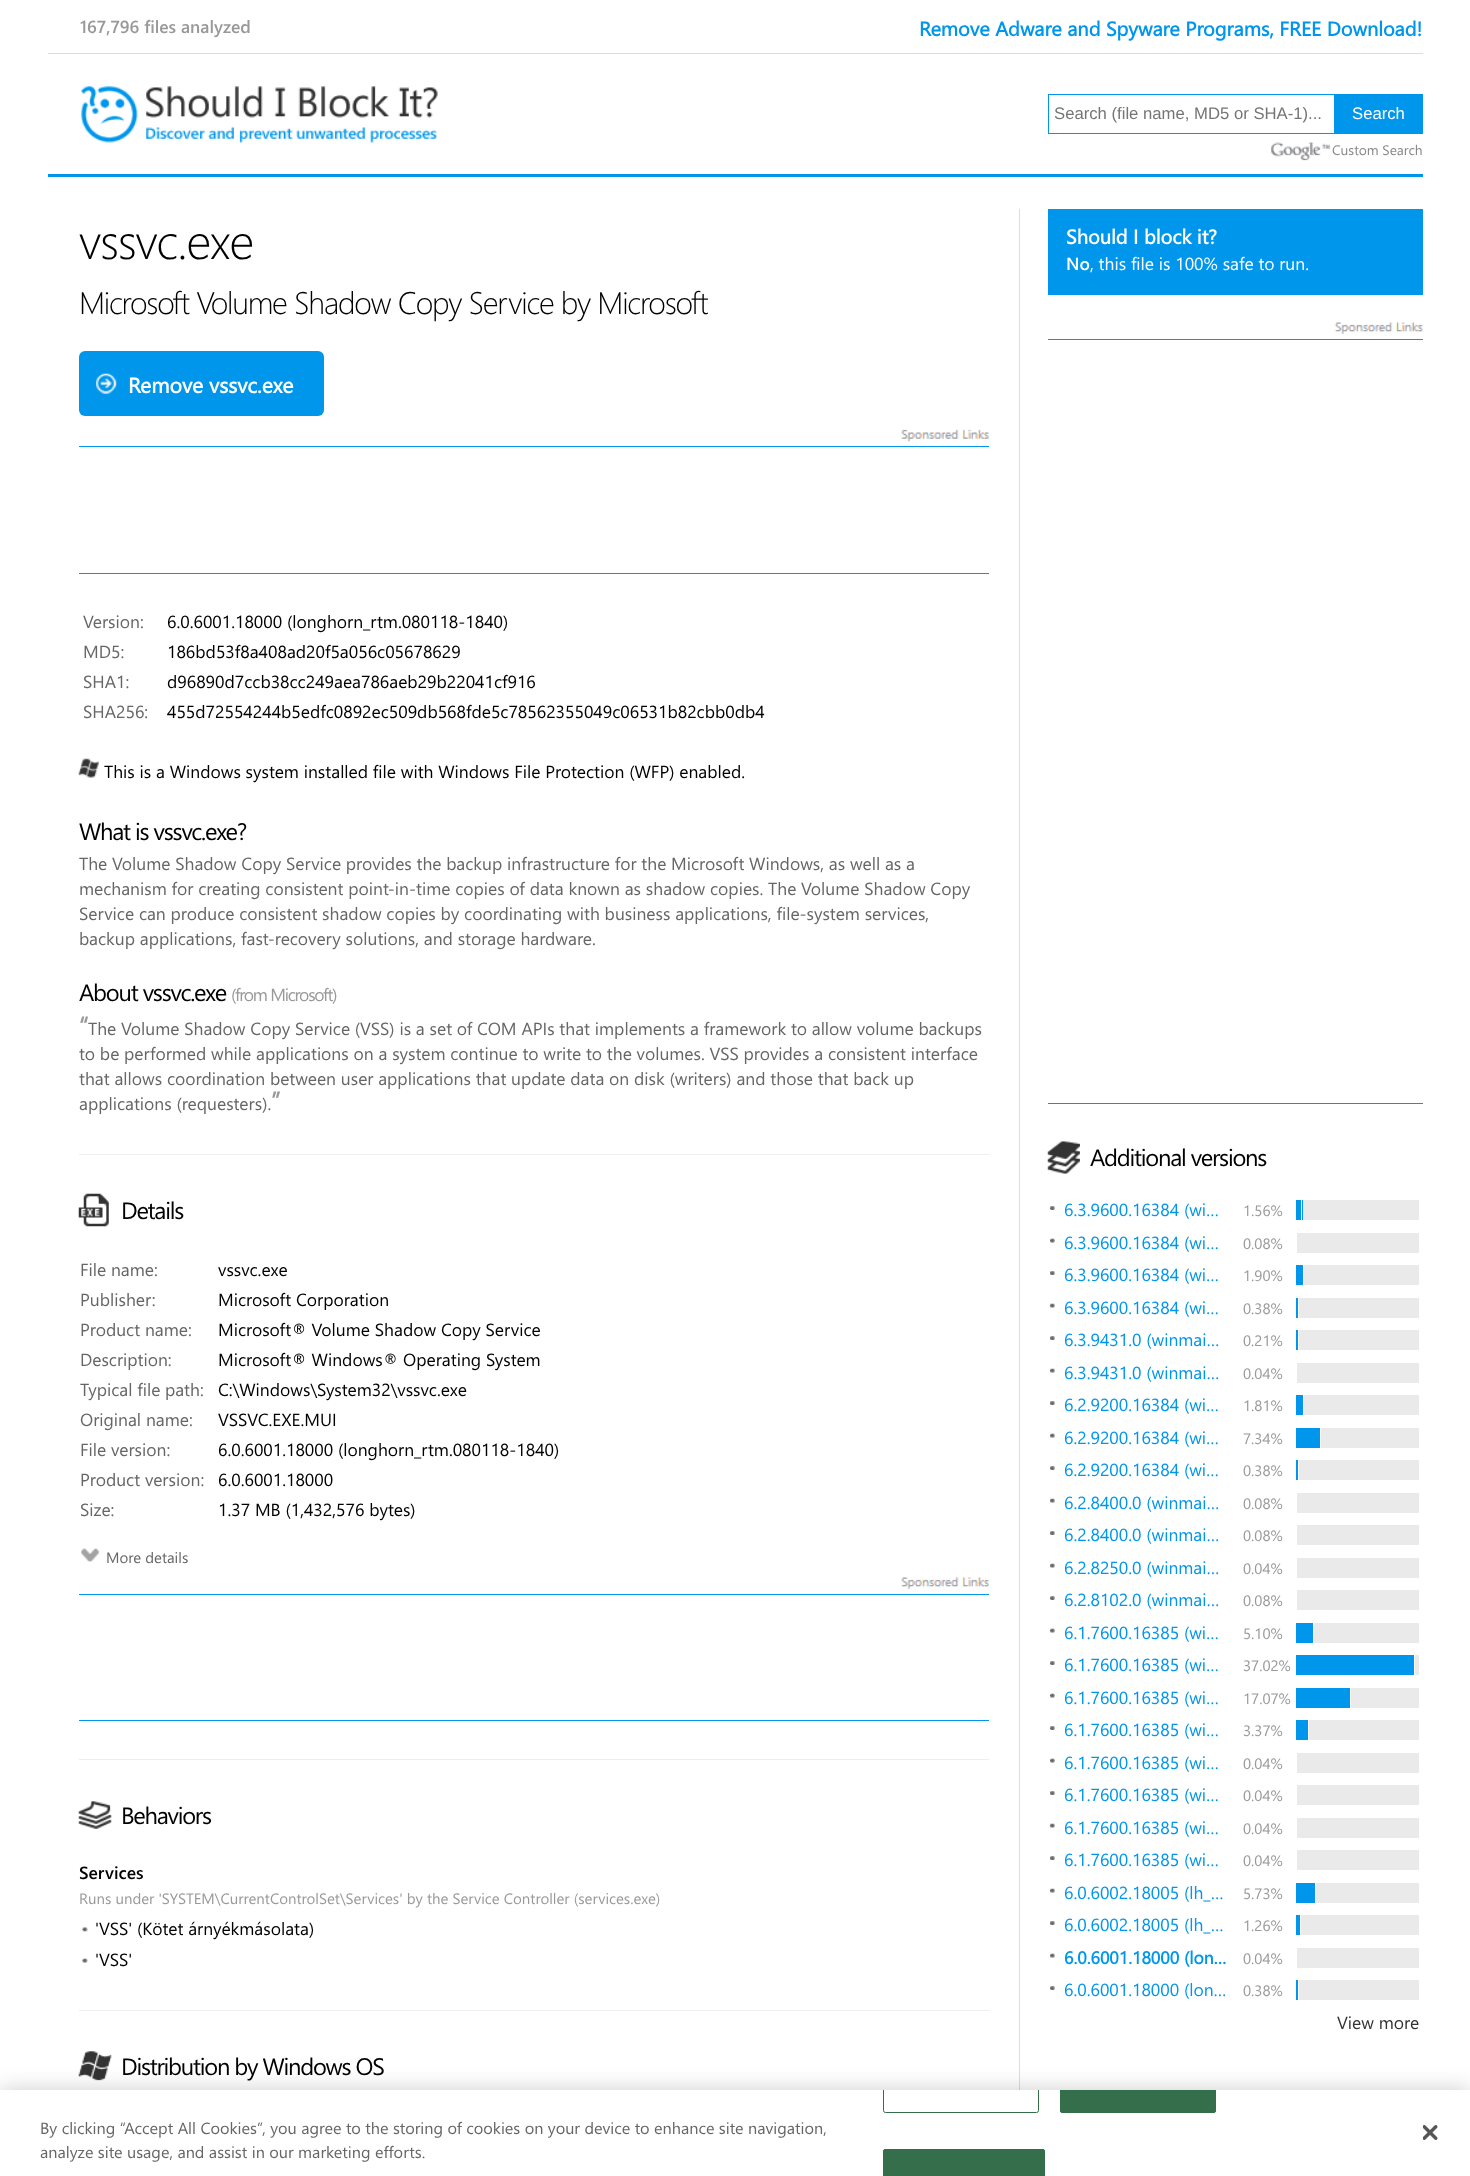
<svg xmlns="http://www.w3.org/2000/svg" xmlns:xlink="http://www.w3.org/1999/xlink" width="1470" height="2176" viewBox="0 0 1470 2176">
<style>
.cls-1{font:600 17.5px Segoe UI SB;fill:#999999}
.cls-2{font:bold 20px Segoe UI;fill:#0096eb}
.cls-3{font:16.7px Liberation Sans;fill:#757575}
.cls-4{font:16.7px Liberation Sans;fill:#ffffff}
.cls-5{font:13.75px Segoe UI;fill:#888888}
.cls-6{font:300 49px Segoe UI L;letter-spacing:-1.25px;fill:#000000}
.cls-7{font:300 31.25px Segoe UI L;letter-spacing:-1.25px;fill:#000000}
.cls-8{font:bold 21.25px Segoe UI;fill:#ffffff}
.cls-9{font:17.5px Segoe UI;fill:#666666}
.cls-10{font:17.5px Segoe UI;fill:#000000}
.cls-11{font:23.75px Segoe UI;letter-spacing:-1.25px;fill:#000000}
.cls-12{font:17.5px Segoe UI;letter-spacing:-1.25px;fill:#999999}
.cls-13{font:bold 25px Segoe UI;fill:#999999}
.cls-14{font:15px Segoe UI;fill:#666666}
.cls-15{font:600 17.5px Segoe UI SB;fill:#000000}
.cls-16{font:15px Segoe UI;fill:#999999}
.cls-17{font:bold 20px Segoe UI;fill:#ffffff}
.cls-18{font:600 17.5px Segoe UI SB;fill:#ffffff}
.cls-19{font:17.5px Segoe UI;fill:#ffffff}
.cls-20{font:17.5px Segoe UI;fill:#0096eb}
.cls-21{font:bold 17.5px Segoe UI;fill:#0096eb}
.cls-22{font:17.5px Segoe UI;fill:#333333}
.cls-23{font:16.25px Segoe UI;fill:#666666}
</style>
<defs>
<clipPath id="clip1"><rect x="0" y="2090" width="1470" height="86"/></clipPath>
</defs>
<rect width="100%" height="100%" fill="#ffffff"/>
<rect fill="#dddddd" x="48" y="53" width="1375" height="1"/>
<rect fill="#0096eb" x="48" y="174" width="1375" height="3"/>
<image xlink:href="image0.png" x="81" y="86" width="357" height="57"/>
<rect fill="none" stroke="#0096eb" x="1048.5" y="94.5" width="286" height="39"/>
<rect fill="#0096eb" x="1335" y="94" width="88" height="40"/>
<image xlink:href="image1.png" x="1271" y="142" width="60" height="19"/>
<rect fill="#0096eb" x="79" y="351" width="245" height="65" rx="6"/>
<image xlink:href="image2.png" x="96" y="373" width="21" height="21"/>
<image xlink:href="image3.png" x="901" y="429" width="88" height="13"/>
<rect fill="#0096eb" x="79" y="446" width="910" height="1"/>
<rect fill="#0096eb" x="79" y="573" width="910" height="1"/>
<image xlink:href="image4.png" x="78" y="758" width="21" height="20"/>
<rect fill="#eeeeee" x="79" y="1154" width="910" height="1"/>
<image xlink:href="image5.png" x="78" y="1193" width="31" height="34"/>
<image xlink:href="image6.png" x="81" y="1548" width="18" height="14"/>
<image xlink:href="image7.png" x="901" y="1577" width="88" height="12"/>
<rect fill="#0096eb" x="79" y="1594" width="910" height="1"/>
<rect fill="#0096eb" x="79" y="1720" width="910" height="1"/>
<rect fill="#eeeeee" x="79" y="1759" width="910" height="1"/>
<image xlink:href="image8.png" x="78" y="1801" width="34" height="28"/>
<image xlink:href="image9.png" x="82" y="1927" width="6" height="5"/>
<image xlink:href="image10.png" x="82" y="1958" width="6" height="5"/>
<rect fill="#eeeeee" x="79" y="2010" width="910" height="1"/>
<image xlink:href="image11.png" x="78" y="2051" width="34" height="30"/>
<rect fill="#dddddd" x="1019" y="209" width="1" height="1881"/>
<rect fill="#0096eb" x="1048" y="209" width="375" height="86"/>
<image xlink:href="image12.png" x="1334" y="322" width="89" height="12"/>
<rect fill="#0096eb" x="1048" y="339" width="375" height="1"/>
<rect fill="#0096eb" x="1048" y="1103" width="375" height="1"/>
<image xlink:href="image13.png" x="1047" y="1141" width="33" height="33"/>
<image xlink:href="image14.png" x="1050" y="1206" width="5" height="4"/>
<rect fill="#eaeaea" x="1303" y="1200" width="116" height="20"/>
<rect fill="#0096eb" x="1296" y="1200" width="7" height="20"/>
<rect fill="#ffffff" x="1301" y="1200" width="1" height="20"/>
<image xlink:href="image15.png" x="1050" y="1238" width="5" height="5"/>
<rect fill="#eaeaea" x="1297" y="1233" width="122" height="20"/>
<image xlink:href="image14.png" x="1050" y="1271" width="5" height="4"/>
<rect fill="#eaeaea" x="1304" y="1265" width="115" height="20"/>
<rect fill="#0096eb" x="1296" y="1265" width="7" height="20"/>
<image xlink:href="image15.png" x="1050" y="1303" width="5" height="5"/>
<rect fill="#eaeaea" x="1299" y="1298" width="120" height="20"/>
<rect fill="#0096eb" x="1296" y="1298" width="2" height="20"/>
<image xlink:href="image14.png" x="1050" y="1336" width="5" height="4"/>
<rect fill="#eaeaea" x="1299" y="1330" width="120" height="20"/>
<rect fill="#0096eb" x="1296" y="1330" width="2" height="20"/>
<image xlink:href="image15.png" x="1050" y="1368" width="5" height="5"/>
<rect fill="#eaeaea" x="1297" y="1363" width="122" height="20"/>
<image xlink:href="image14.png" x="1050" y="1401" width="5" height="4"/>
<rect fill="#eaeaea" x="1304" y="1395" width="115" height="20"/>
<rect fill="#0096eb" x="1296" y="1395" width="7" height="20"/>
<image xlink:href="image15.png" x="1050" y="1433" width="5" height="5"/>
<rect fill="#eaeaea" x="1321" y="1428" width="98" height="20"/>
<rect fill="#0096eb" x="1296" y="1428" width="24" height="20"/>
<image xlink:href="image14.png" x="1050" y="1466" width="5" height="4"/>
<rect fill="#eaeaea" x="1299" y="1460" width="120" height="20"/>
<rect fill="#0096eb" x="1296" y="1460" width="2" height="20"/>
<image xlink:href="image15.png" x="1050" y="1498" width="5" height="5"/>
<rect fill="#eaeaea" x="1297" y="1493" width="122" height="20"/>
<image xlink:href="image14.png" x="1050" y="1531" width="5" height="4"/>
<rect fill="#eaeaea" x="1297" y="1525" width="122" height="20"/>
<image xlink:href="image15.png" x="1050" y="1563" width="5" height="5"/>
<rect fill="#eaeaea" x="1297" y="1558" width="122" height="20"/>
<image xlink:href="image14.png" x="1050" y="1596" width="5" height="4"/>
<rect fill="#eaeaea" x="1297" y="1590" width="122" height="20"/>
<image xlink:href="image15.png" x="1050" y="1628" width="5" height="5"/>
<rect fill="#eaeaea" x="1314" y="1623" width="105" height="20"/>
<rect fill="#0096eb" x="1296" y="1623" width="17" height="20"/>
<image xlink:href="image14.png" x="1050" y="1661" width="5" height="4"/>
<rect fill="#eaeaea" x="1415" y="1655" width="4" height="20"/>
<rect fill="#0096eb" x="1296" y="1655" width="118" height="20"/>
<image xlink:href="image15.png" x="1050" y="1693" width="5" height="5"/>
<rect fill="#eaeaea" x="1351" y="1688" width="68" height="20"/>
<rect fill="#0096eb" x="1296" y="1688" width="54" height="20"/>
<image xlink:href="image14.png" x="1050" y="1726" width="5" height="4"/>
<rect fill="#eaeaea" x="1309" y="1720" width="110" height="20"/>
<rect fill="#0096eb" x="1296" y="1720" width="12" height="20"/>
<image xlink:href="image15.png" x="1050" y="1758" width="5" height="5"/>
<rect fill="#eaeaea" x="1297" y="1753" width="122" height="20"/>
<image xlink:href="image14.png" x="1050" y="1791" width="5" height="4"/>
<rect fill="#eaeaea" x="1297" y="1785" width="122" height="20"/>
<image xlink:href="image15.png" x="1050" y="1823" width="5" height="5"/>
<rect fill="#eaeaea" x="1297" y="1818" width="122" height="20"/>
<image xlink:href="image14.png" x="1050" y="1856" width="5" height="4"/>
<rect fill="#eaeaea" x="1297" y="1850" width="122" height="20"/>
<image xlink:href="image15.png" x="1050" y="1888" width="5" height="5"/>
<rect fill="#eaeaea" x="1316" y="1883" width="103" height="20"/>
<rect fill="#0096eb" x="1296" y="1883" width="19" height="20"/>
<image xlink:href="image14.png" x="1050" y="1921" width="5" height="4"/>
<rect fill="#eaeaea" x="1301" y="1915" width="118" height="20"/>
<rect fill="#0096eb" x="1296" y="1915" width="4" height="20"/>
<image xlink:href="image15.png" x="1050" y="1953" width="5" height="5"/>
<rect fill="#eaeaea" x="1297" y="1948" width="122" height="20"/>
<image xlink:href="image14.png" x="1050" y="1986" width="5" height="4"/>
<rect fill="#eaeaea" x="1299" y="1980" width="120" height="20"/>
<rect fill="#0096eb" x="1296" y="1980" width="2" height="20"/>
<rect fill="#000000" fill-opacity="0.2" filter="blur(11px)" x="0" y="2090" width="1470" height="86"/>
<rect fill="#ffffff" x="0" y="2090" width="1470" height="86"/>
<g clip-path="url(#clip1)">
<rect fill="none" stroke="#346e4a" x="883.5" y="2060.5" width="155" height="52" rx="2"/>
</g>
<path fill="#346e4a" d="M1060 2090H1216V2110.5C1216 2112 1215 2113 1213.5 2113H1062.5C1061 2113 1060 2112 1060 2110.5Z"/>
<g clip-path="url(#clip1)">
<rect fill="none" stroke="#346e4a" x="1060.5" y="2060.5" width="155" height="52" rx="2"/>
</g>
<path fill="#346e4a" d="M885.5 2149H1042.5C1044 2149 1045 2150 1045 2151.5V2176H883V2151.5C883 2150 884 2149 885.5 2149Z"/>
<rect fill="none" stroke="#346e4a" x="883.5" y="2149.5" width="161" height="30" rx="2"/>
<image xlink:href="image16.png" x="1423" y="2125" width="15" height="15"/>
<text class="cls-1" x="80" y="33">167,796 files analyzed</text>
<text class="cls-2" x="919" y="36">Remove Adware and Spyware Programs, FREE Download!</text>
<text class="cls-3" x="1054" y="119">Search (file name, MD5 or SHA-1)...</text>
<text class="cls-4" x="1352" y="119">Search</text>
<text class="cls-5" x="1332" y="155">Custom Search</text>
<text class="cls-6" x="79" y="259">vssvc.exe</text>
<text class="cls-7" x="79" y="314">Microsoft Volume Shadow Copy Service by Microsoft</text>
<text class="cls-8" x="128" y="393">Remove vssvc.exe</text>
<text class="cls-9" x="83" y="628">Version:</text>
<text class="cls-10" x="167" y="628">6.0.6001.18000 (longhorn_rtm.080118-1840)</text>
<text class="cls-9" x="83" y="658">MD5:</text>
<text class="cls-10" x="167" y="658">186bd53f8a408ad20f5a056c05678629</text>
<text class="cls-9" x="83" y="688">SHA1:</text>
<text class="cls-10" x="167" y="688">d96890d7ccb38cc249aea786aeb29b22041cf916</text>
<text class="cls-9" x="83" y="718">SHA256:</text>
<text class="cls-10" x="167" y="718">455d72554244b5edfc0892ec509db568fde5c78562355049c06531b82cbb0db4</text>
<text class="cls-10" x="104" y="778">This is a Windows system installed file with Windows File Protection (WFP) enabled.</text>
<text class="cls-11" x="79" y="840">What is vssvc.exe?</text>
<text class="cls-9"><tspan x="79" y="870">The Volume Shadow Copy Service provides the backup infrastructure for the Microsoft Windows, as well as a</tspan><tspan x="79" y="895">mechanism for creating consistent point-in-time copies of data known as shadow copies. The Volume Shadow Copy</tspan><tspan x="79" y="920">Service can produce consistent shadow copies by coordinating with business applications, file-system services,</tspan><tspan x="79" y="945">backup applications, fast-recovery solutions, and storage hardware.</tspan></text>
<text class="cls-11" x="79" y="1001">About vssvc.exe</text>
<text class="cls-12" x="231" y="1001">(from Microsoft)</text>
<text class="cls-13" x="79" y="1035">“</text>
<text class="cls-9" x="88" y="1035">The Volume Shadow Copy Service (VSS) is a set of COM APIs that implements a framework to allow volume backups</text>
<text class="cls-9"><tspan x="79" y="1060">to be performed while applications on a system continue to write to the volumes. VSS provides a consistent interface</tspan><tspan x="79" y="1085">that allows coordination between user applications that update data on disk (writers) and those that back up</tspan></text>
<text class="cls-13" x="271" y="1110">”</text>
<text class="cls-9" x="79" y="1110">applications (requesters).</text>
<text class="cls-11" x="121" y="1219">Details</text>
<text class="cls-9" x="80" y="1276">File name:</text>
<text class="cls-10" x="218" y="1276">vssvc.exe</text>
<text class="cls-9" x="80" y="1306">Publisher:</text>
<text class="cls-10" x="218" y="1306">Microsoft Corporation</text>
<text class="cls-9" x="80" y="1336">Product name:</text>
<text class="cls-10" x="218" y="1336">Microsoft® Volume Shadow Copy Service</text>
<text class="cls-9" x="80" y="1366">Description:</text>
<text class="cls-10" x="218" y="1366">Microsoft® Windows® Operating System</text>
<text class="cls-9" x="80" y="1396">Typical file path:</text>
<text class="cls-10" x="218" y="1396">C:\Windows\System32\vssvc.exe</text>
<text class="cls-9" x="80" y="1426">Original name:</text>
<text class="cls-10" x="218" y="1426">VSSVC.EXE.MUI</text>
<text class="cls-9" x="80" y="1456">File version:</text>
<text class="cls-10" x="218" y="1456">6.0.6001.18000 (longhorn_rtm.080118-1840)</text>
<text class="cls-9" x="80" y="1486">Product version:</text>
<text class="cls-10" x="218" y="1486">6.0.6001.18000</text>
<text class="cls-9" x="80" y="1516">Size:</text>
<text class="cls-10" x="218" y="1516">1.37 MB (1,432,576 bytes)</text>
<text class="cls-14" x="106" y="1563">More details</text>
<text class="cls-11" x="121" y="1824">Behaviors</text>
<text class="cls-15" x="79" y="1879">Services</text>
<text class="cls-16" x="79" y="1904">Runs under 'SYSTEM\CurrentControlSet\Services' by the Service Controller (services.exe)</text>
<text class="cls-10"><tspan x="95" y="1935">'VSS' (Kötet árnyékmásolata)</tspan><tspan x="95" y="1966">'VSS'</tspan></text>
<text class="cls-11" x="121" y="2075">Distribution by Windows OS</text>
<text class="cls-17" x="1066" y="244">Should I block it?</text>
<text class="cls-18" x="1066" y="270">No</text>
<text class="cls-19" x="1090" y="270">, this file is 100% safe to run.</text>
<text class="cls-11" x="1090" y="1166">Additional versions</text>
<text class="cls-20" x="1064" y="1216">6.3.9600.16384 (wi…</text>
<text class="cls-16" x="1243" y="1216">1.56%</text>
<text class="cls-20" x="1064" y="1249">6.3.9600.16384 (wi…</text>
<text class="cls-16" x="1243" y="1249">0.08%</text>
<text class="cls-20" x="1064" y="1281">6.3.9600.16384 (wi…</text>
<text class="cls-16" x="1243" y="1281">1.90%</text>
<text class="cls-20" x="1064" y="1314">6.3.9600.16384 (wi…</text>
<text class="cls-16" x="1243" y="1314">0.38%</text>
<text class="cls-20" x="1064" y="1346">6.3.9431.0 (winmai…</text>
<text class="cls-16" x="1243" y="1346">0.21%</text>
<text class="cls-20" x="1064" y="1379">6.3.9431.0 (winmai…</text>
<text class="cls-16" x="1243" y="1379">0.04%</text>
<text class="cls-20" x="1064" y="1411">6.2.9200.16384 (wi…</text>
<text class="cls-16" x="1243" y="1411">1.81%</text>
<text class="cls-20" x="1064" y="1444">6.2.9200.16384 (wi…</text>
<text class="cls-16" x="1243" y="1444">7.34%</text>
<text class="cls-20" x="1064" y="1476">6.2.9200.16384 (wi…</text>
<text class="cls-16" x="1243" y="1476">0.38%</text>
<text class="cls-20" x="1064" y="1509">6.2.8400.0 (winmai…</text>
<text class="cls-16" x="1243" y="1509">0.08%</text>
<text class="cls-20" x="1064" y="1541">6.2.8400.0 (winmai…</text>
<text class="cls-16" x="1243" y="1541">0.08%</text>
<text class="cls-20" x="1064" y="1574">6.2.8250.0 (winmai…</text>
<text class="cls-16" x="1243" y="1574">0.04%</text>
<text class="cls-20" x="1064" y="1606">6.2.8102.0 (winmai…</text>
<text class="cls-16" x="1243" y="1606">0.08%</text>
<text class="cls-20" x="1064" y="1639">6.1.7600.16385 (wi…</text>
<text class="cls-16" x="1243" y="1639">5.10%</text>
<text class="cls-20" x="1064" y="1671">6.1.7600.16385 (wi…</text>
<text class="cls-16" x="1243" y="1671">37.02%</text>
<text class="cls-20" x="1064" y="1704">6.1.7600.16385 (wi…</text>
<text class="cls-16" x="1243" y="1704">17.07%</text>
<text class="cls-20" x="1064" y="1736">6.1.7600.16385 (wi…</text>
<text class="cls-16" x="1243" y="1736">3.37%</text>
<text class="cls-20" x="1064" y="1769">6.1.7600.16385 (wi…</text>
<text class="cls-16" x="1243" y="1769">0.04%</text>
<text class="cls-20" x="1064" y="1801">6.1.7600.16385 (wi…</text>
<text class="cls-16" x="1243" y="1801">0.04%</text>
<text class="cls-20" x="1064" y="1834">6.1.7600.16385 (wi…</text>
<text class="cls-16" x="1243" y="1834">0.04%</text>
<text class="cls-20" x="1064" y="1866">6.1.7600.16385 (wi…</text>
<text class="cls-16" x="1243" y="1866">0.04%</text>
<text class="cls-20" x="1064" y="1899">6.0.6002.18005 (lh_…</text>
<text class="cls-16" x="1243" y="1899">5.73%</text>
<text class="cls-20" x="1064" y="1931">6.0.6002.18005 (lh_…</text>
<text class="cls-16" x="1243" y="1931">1.26%</text>
<text class="cls-21" x="1064" y="1964">6.0.6001.18000 (lon…</text>
<text class="cls-16" x="1243" y="1964">0.04%</text>
<text class="cls-20" x="1064" y="1996">6.0.6001.18000 (lon…</text>
<text class="cls-16" x="1243" y="1996">0.38%</text>
<text class="cls-22" x="1337" y="2029">View more</text>
<text class="cls-23"><tspan x="40" y="2134">By clicking “Accept All Cookies”, you agree to the storing of cookies on your device to enhance site navigation,</tspan><tspan x="40" y="2158">analyze site usage, and assist in our marketing efforts.</tspan></text>
</svg>
